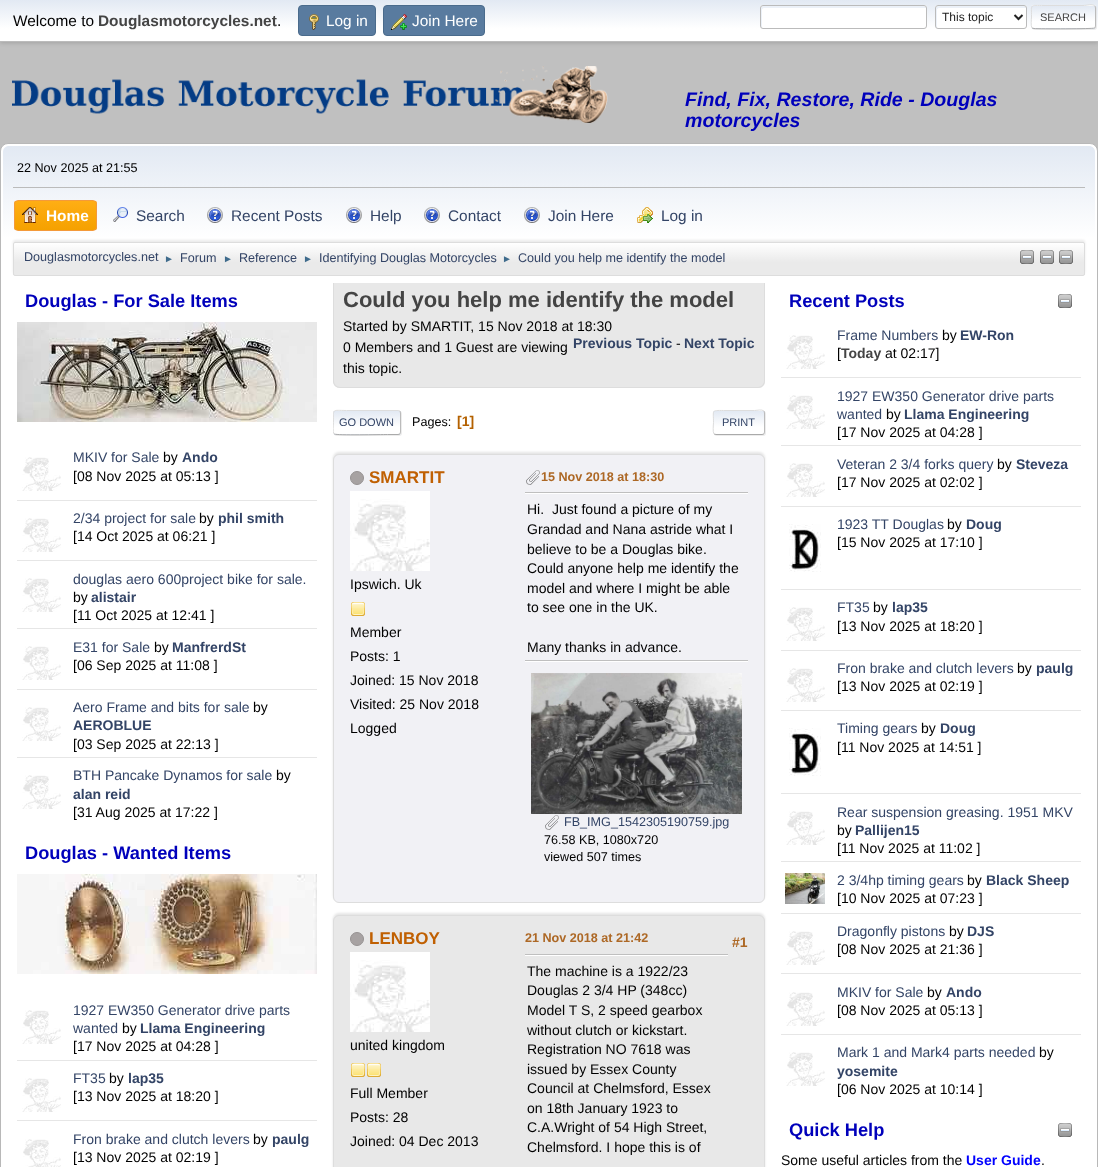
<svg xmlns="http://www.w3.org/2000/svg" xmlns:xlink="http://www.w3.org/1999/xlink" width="1098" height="1167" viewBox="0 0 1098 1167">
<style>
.cls-1{font:15.4px Liberation Sans;fill:#000000}
.cls-2{font:bold 15.4px Liberation Sans;fill:#444444}
.cls-3{font:15.4px Liberation Sans;fill:#ffffff}
.cls-4{font:12px Liberation Sans;fill:#222222}
.cls-5{font:11px Liberation Sans;fill:#444444}
.cls-6{font:italic bold 19.6px Liberation Sans;fill:#0000bb}
.cls-7{font:12.6px Liberation Sans;fill:#000000}
.cls-8{font:bold 15.4px Liberation Sans;fill:#ffffff}
.cls-9{font:15.4px Liberation Sans;fill:#334466}
.cls-10{font:12.6px Liberation Sans;fill:#334466}
.cls-11{font:10px Liberation Sans;fill:#3f6b8c}
.cls-12{font:bold 18.25px Liberation Sans;fill:#0000bb}
.cls-13{font:14px Liberation Sans;fill:#334466}
.cls-14{font:14px Liberation Sans;fill:#000000}
.cls-15{font:bold 14px Liberation Sans;fill:#334466}
.cls-16{font:bold 22px Liberation Sans;fill:#444444}
.cls-17{font:11px Liberation Sans;fill:#334466}
.cls-18{font:bold 14px Liberation Sans;fill:#b46100}
.cls-19{font:bold 17px Liberation Sans;fill:#c06002}
.cls-20{font:bold 12.6px Liberation Sans;fill:#ad6825}
.cls-21{font:bold 14px Liberation Sans;fill:#ad6825}
.cls-22{font:bold 14px Liberation Sans;fill:#444444}
.cls-23{font:bold 14px Liberation Sans;fill:#0000ff}
</style>
<defs>
<linearGradient id="g1" gradientUnits="userSpaceOnUse" x1="549" y1="0" x2="549" y2="41"><stop offset="0" stop-color="#e2e9f3"/><stop offset="0.7" stop-color="#ffffff"/></linearGradient>
<clipPath id="clip1"><rect x="1031" y="5" width="65" height="24" rx="3"/></clipPath>
<linearGradient id="g2" gradientUnits="userSpaceOnUse" x1="1064" y1="-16" x2="1064" y2="6"><stop offset="0" stop-color="#e2e9f3"/><stop offset="0.7" stop-color="#ffffff"/></linearGradient>
<linearGradient id="g3" gradientUnits="userSpaceOnUse" x1="1064" y1="6" x2="1064" y2="28"><stop offset="0" stop-color="#e2e9f3"/><stop offset="0.7" stop-color="#ffffff"/></linearGradient>
<linearGradient id="g4" gradientUnits="userSpaceOnUse" x1="1064" y1="28" x2="1064" y2="50"><stop offset="0" stop-color="#e2e9f3"/><stop offset="0.7" stop-color="#ffffff"/></linearGradient>
<linearGradient id="g5" gradientUnits="userSpaceOnUse" x1="549" y1="146" x2="549" y2="278"><stop offset="0" stop-color="#e2e9f3"/><stop offset="0.7" stop-color="#ffffff"/></linearGradient>
<clipPath id="clip2"><rect x="14" y="200" width="83" height="31" rx="4"/></clipPath>
<linearGradient id="g6" gradientUnits="userSpaceOnUse" x1="56" y1="201" x2="56" y2="230"><stop offset="0" stop-color="#ffae14"/><stop offset="1" stop-color="#f5a100"/></linearGradient>
<clipPath id="clip3"><rect x="13" y="242" width="1072" height="34" rx="2"/></clipPath>
<linearGradient id="g7" gradientUnits="userSpaceOnUse" x1="549" y1="243" x2="549" y2="275"><stop offset="0" stop-color="#ffffff"/><stop offset="0.6" stop-color="#eaeaea"/></linearGradient>
<clipPath id="clip4"><rect x="333" y="283" width="432" height="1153"/></clipPath>
<clipPath id="clip5"><rect x="333" y="410" width="68" height="25" rx="3"/></clipPath>
<linearGradient id="g8" gradientUnits="userSpaceOnUse" x1="367" y1="411" x2="367" y2="434"><stop offset="0" stop-color="#e2e9f3"/><stop offset="0.7" stop-color="#ffffff"/></linearGradient>
<linearGradient id="g9" gradientUnits="userSpaceOnUse" x1="367" y1="434" x2="367" y2="457"><stop offset="0" stop-color="#e2e9f3"/><stop offset="0.7" stop-color="#ffffff"/></linearGradient>
<clipPath id="clip6"><rect x="333" y="403" width="432" height="39"/></clipPath>
<clipPath id="clip7"><path d="M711 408H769V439H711ZM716 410H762C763.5 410 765 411.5 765 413V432C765 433.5 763.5 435 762 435H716C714.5 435 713 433.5 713 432V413C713 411.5 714.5 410 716 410Z" clip-rule="evenodd"/></clipPath>
<clipPath id="clip8"><rect x="713" y="410" width="52" height="25" rx="3"/></clipPath>
<linearGradient id="g10" gradientUnits="userSpaceOnUse" x1="739" y1="411" x2="739" y2="434"><stop offset="0" stop-color="#e2e9f3"/><stop offset="0.7" stop-color="#ffffff"/></linearGradient>
</defs>
<rect width="100%" height="100%" fill="#c0c0c0"/>
<rect fill="#000000" fill-opacity="0.16" filter="blur(2px)" x="0" y="1" width="1098" height="42"/>
<rect fill="url(#g1)" x="0" y="0" width="1098" height="41"/>
<rect fill="#bbbbbb" x="0" y="41" width="1098" height="1"/>
<rect fill="#597b9f" stroke="#4a6b8c" x="298.5" y="5.5" width="77" height="30" rx="3.5"/>
<image xlink:href="image0.png" x="309" y="14" width="10" height="16"/>
<rect fill="#597b9f" stroke="#4a6b8c" x="383.5" y="5.5" width="101" height="30" rx="3.5"/>
<image xlink:href="image1.png" x="391" y="14" width="16" height="16"/>
<rect fill="#ffffff" x="760" y="5" width="167" height="24" rx="3"/>
<path fill="#ecf1f8" d="M764 8H926V7L924 6H763C762 6 761 7 761 8C761 11 760 27 762 28V10C762 9 763 8 764 8Z"/>
<rect fill="none" stroke="#bbbbbb" x="760.5" y="5.5" width="166" height="23" rx="2.5"/>
<rect fill="#ffffff" x="935" y="5" width="92" height="24" rx="3"/>
<path fill="#ecf1f8" d="M939 8H1026C1026 3 1014 6 1010 6H952C934 6 936 2 936 17C936 19 935 27 937 28V10C937 9 938 8 939 8Z"/>
<rect fill="none" stroke="#bbbbbb" x="935.5" y="5.5" width="91" height="23" rx="2.5"/>
<path fill="none" stroke="#222222" stroke-width="2" d="M1014.5 15L1018.5 19L1022.5 15"/>
<rect fill="#dddddd" fill-opacity="0.57" filter="blur(0.5px)" x="1032" y="6" width="65" height="24" rx="3"/>
<g clip-path="url(#clip1)">
<rect fill="url(#g2)" x="1031" y="5" width="65" height="1"/>
<rect fill="url(#g3)" x="1031" y="6" width="65" height="22"/>
<rect fill="url(#g4)" x="1031" y="28" width="65" height="1"/>
</g>
<path fill="none" stroke="#bbbbbb" d="M1095 6C1095 6.5 1095.5 7.5 1095.5 8V26C1095.5 26.5 1095 27.5 1095 28"/>
<path fill="none" stroke="#aaaaaa" d="M1095 28H1094.5C1093.5 29 1039 29 1034 28.5L1032 28"/>
<path fill="none" stroke="#dddddd" d="M1032 28C1030.5 26 1031.5 19 1031.5 17C1031.5 3.5 1029.5 5.5 1044 5.5H1083C1087 5.5 1092 3.5 1095 6"/>
<image xlink:href="image2.png" x="12" y="66" width="596" height="57"/>
<rect fill="#ffffff" stroke="#b8b8b8" x="0.5" y="143.5" width="1097" height="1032" rx="7.5"/>
<path fill="url(#g5)" d="M9 146H1089C1092.5 146 1095 148.5 1095 152V278H3V152C3 148.5 5.5 146 9 146Z"/>
<rect fill="#bbbbbb" x="13" y="187" width="1072" height="1"/>
<g clip-path="url(#clip2)">
<rect fill="url(#g6)" x="14" y="201" width="83" height="29"/>
</g>
<rect fill="none" stroke="#f49a3a" x="14.5" y="200.5" width="82" height="30" rx="3.5"/>
<image xlink:href="image3.png" x="22" y="207" width="16" height="16"/>
<image xlink:href="image4.png" x="113" y="207" width="15" height="15"/>
<image xlink:href="image5.png" x="207" y="207" width="16" height="16"/>
<image xlink:href="image5.png" x="346" y="207" width="16" height="16"/>
<image xlink:href="image5.png" x="424" y="207" width="16" height="16"/>
<image xlink:href="image5.png" x="524" y="207" width="16" height="16"/>
<image xlink:href="image6.png" x="637" y="207" width="16" height="16"/>
<rect fill="#000000" fill-opacity="0.08" filter="blur(1px)" x="13" y="240" width="1072" height="34" rx="2"/>
<g clip-path="url(#clip3)">
<rect fill="url(#g7)" x="13" y="243" width="1072" height="32"/>
</g>
<rect fill="none" stroke="#dddddd" x="13.5" y="242.5" width="1071" height="33" rx="1.5"/>
<image xlink:href="image7.png" x="1020" y="250" width="14" height="14"/>
<image xlink:href="image7.png" x="1040" y="250" width="14" height="14"/>
<image xlink:href="image7.png" x="1059" y="250" width="14" height="14"/>
<image xlink:href="image8.png" x="17" y="322" width="300" height="100"/>
<rect fill="#e6e6e6" x="17" y="500" width="300" height="1"/>
<image xlink:href="image9.png" x="22" y="457" width="39" height="34"/>
<rect fill="#e6e6e6" x="17" y="560" width="300" height="1"/>
<image xlink:href="image9.png" x="22" y="518" width="39" height="34"/>
<rect fill="#e6e6e6" x="17" y="628" width="300" height="1"/>
<image xlink:href="image9.png" x="22" y="578" width="39" height="34"/>
<rect fill="#e6e6e6" x="17" y="689" width="300" height="1"/>
<image xlink:href="image9.png" x="22" y="646" width="39" height="34"/>
<rect fill="#e6e6e6" x="17" y="757" width="300" height="1"/>
<image xlink:href="image9.png" x="22" y="707" width="39" height="34"/>
<image xlink:href="image9.png" x="22" y="775" width="39" height="34"/>
<image xlink:href="image10.png" x="17" y="874" width="300" height="100"/>
<rect fill="#e6e6e6" x="17" y="1060" width="300" height="1"/>
<image xlink:href="image9.png" x="22" y="1010" width="39" height="34"/>
<rect fill="#e6e6e6" x="17" y="1120" width="300" height="1"/>
<image xlink:href="image9.png" x="22" y="1078" width="39" height="34"/>
<image xlink:href="image11.png" x="23" y="1139" width="38" height="28"/>
<path fill="#e8e8e8" d="M333 283H765V381C765 385 762 388 758 388H340C336 388 333 385 333 381Z"/>
<g clip-path="url(#clip4)">
<path fill="#dddddd" fill-rule="evenodd" d="M333 276H765V381C765 385 762 388 758 388H340C336 388 333 385 333 381ZM334 276H764V381C764 384 761 387 758 387H340C337 387 334 384 334 381Z"/>
</g>
<rect fill="#dddddd" fill-opacity="0.57" filter="blur(0.5px)" x="334" y="411" width="68" height="25" rx="3"/>
<g clip-path="url(#clip5)">
<rect fill="url(#g8)" x="333" y="411" width="68" height="23"/>
<rect fill="url(#g9)" x="333" y="434" width="68" height="1"/>
</g>
<path fill="none" stroke="#bbbbbb" d="M400 411C400 411.5 400.5 412.5 400.5 413V432C400.5 432.5 400 433.5 400 434"/>
<path fill="none" stroke="#aaaaaa" d="M400 434L398 434.5H387.5C381.5 434.5 336.5 435.5 334.5 434H334"/>
<g clip-path="url(#clip6)">
<path fill="none" stroke="#dddddd" d="M334 434C332.5 432 333.5 425 333.5 422.5C333.5 408 331.5 410.5 346.5 410.5H398L400 411"/>
</g>
<g clip-path="url(#clip7)">
<rect fill="#dddddd" fill-opacity="0.57" filter="blur(0.5px)" x="714" y="411" width="52" height="25" rx="3"/>
</g>
<rect fill="#ffffff" x="713" y="410" width="52" height="25" rx="3"/>
<g clip-path="url(#clip8)">
<rect fill="url(#g10)" x="713" y="411" width="52" height="23"/>
</g>
<path fill="none" stroke="#bbbbbb" d="M764 411C764 411.5 764.5 412.5 764.5 413V432C764.5 432.5 764 433.5 764 434"/>
<path fill="none" stroke="#aaaaaa" d="M764 434L762 434.5H716L714 434"/>
<path fill="none" stroke="#dddddd" d="M714 434C712.5 432 713.5 425 713.5 422.5C713.5 409.5 711 410.5 723.5 410.5H754.5C757.5 410.5 761.5 409 764 411"/>
<rect fill="#000000" fill-opacity="0.1" filter="blur(1px)" x="333" y="452" width="432" height="449" rx="6"/>
<rect fill="#f1f1f5" stroke="#dddddd" x="333.5" y="454.5" width="431" height="448" rx="5.5"/>
<circle fill="#a7a2a2" stroke="#969292" cx="357" cy="478" r="6.5"/>
<image xlink:href="image12.png" x="350" y="491" width="80" height="80"/>
<image xlink:href="image13.png" x="351" y="602" width="14" height="14"/>
<image xlink:href="image14.png" x="526" y="470" width="14" height="15"/>
<rect fill="#ffffff" x="525" y="493" width="223" height="1"/>
<rect fill="#bfbfbf" x="525" y="492" width="223" height="1"/>
<rect fill="#ffffff" x="525" y="661" width="223" height="1"/>
<rect fill="#bfbfbf" x="525" y="660" width="223" height="1"/>
<image xlink:href="image15.png" x="531" y="673" width="211" height="141"/>
<image xlink:href="image14.png" x="545" y="815" width="14" height="15"/>
<rect fill="#000000" fill-opacity="0.1" filter="blur(1px)" x="333" y="913" width="432" height="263" rx="6"/>
<rect fill="#e8e8e8" stroke="#dddddd" x="333.5" y="915.5" width="431" height="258" rx="5.5"/>
<circle fill="#a7a2a2" stroke="#969292" cx="357" cy="939" r="6.5"/>
<image xlink:href="image12.png" x="350" y="952" width="80" height="80"/>
<image xlink:href="image16.png" x="351" y="1063" width="14" height="14"/>
<image xlink:href="image16.png" x="367" y="1063" width="14" height="14"/>
<rect fill="#ffffff" x="525" y="955" width="203" height="1"/>
<rect fill="#bfbfbf" x="525" y="954" width="203" height="1"/>
<image xlink:href="image17.png" x="1058" y="294" width="14" height="14"/>
<rect fill="#e6e6e6" x="781" y="377" width="300" height="1"/>
<image xlink:href="image9.png" x="786" y="335" width="39" height="34"/>
<rect fill="#e6e6e6" x="781" y="445" width="300" height="1"/>
<image xlink:href="image9.png" x="786" y="395" width="39" height="34"/>
<rect fill="#e6e6e6" x="781" y="506" width="300" height="1"/>
<image xlink:href="image9.png" x="786" y="463" width="39" height="34"/>
<rect fill="#e6e6e6" x="781" y="589" width="300" height="1"/>
<image xlink:href="image18.png" x="789" y="524" width="32" height="48"/>
<rect fill="#e6e6e6" x="781" y="650" width="300" height="1"/>
<image xlink:href="image9.png" x="786" y="607" width="39" height="34"/>
<rect fill="#e6e6e6" x="781" y="710" width="300" height="1"/>
<image xlink:href="image9.png" x="786" y="668" width="39" height="34"/>
<rect fill="#e6e6e6" x="781" y="793" width="300" height="1"/>
<image xlink:href="image18.png" x="789" y="728" width="32" height="48"/>
<rect fill="#e6e6e6" x="781" y="861" width="300" height="1"/>
<image xlink:href="image9.png" x="786" y="811" width="39" height="34"/>
<rect fill="#e6e6e6" x="781" y="913" width="300" height="1"/>
<image xlink:href="image19.png" x="785" y="873" width="40" height="31"/>
<rect fill="#e6e6e6" x="781" y="973" width="300" height="1"/>
<image xlink:href="image9.png" x="786" y="931" width="39" height="34"/>
<rect fill="#e6e6e6" x="781" y="1034" width="300" height="1"/>
<image xlink:href="image9.png" x="786" y="992" width="39" height="34"/>
<image xlink:href="image9.png" x="786" y="1052" width="39" height="34"/>
<image xlink:href="image17.png" x="1058" y="1123" width="14" height="14"/>
<text class="cls-1" x="13" y="26">Welcome to</text>
<text class="cls-2" x="98" y="26">Douglasmotorcycles.net</text>
<text class="cls-1" x="277" y="26">.</text>
<text class="cls-3" x="326" y="26">Log in</text>
<text class="cls-3" x="412" y="26">Join Here</text>
<text class="cls-4" x="942" y="21">This topic</text>
<text class="cls-5" x="1040" y="21">SEARCH</text>
<text class="cls-6"><tspan x="685" y="106">Find, Fix, Restore, Ride - Douglas</tspan><tspan x="685" y="127">motorcycles</tspan></text>
<text class="cls-7" x="17" y="172">22 Nov 2025 at 21:55</text>
<text class="cls-8" x="46" y="221">Home</text>
<text class="cls-9" x="136" y="221">Search</text>
<text class="cls-9" x="231" y="221">Recent Posts</text>
<text class="cls-9" x="370" y="221">Help</text>
<text class="cls-9" x="448" y="221">Contact</text>
<text class="cls-9" x="548" y="221">Join Here</text>
<text class="cls-9" x="661" y="221">Log in</text>
<text class="cls-10" x="24" y="261">Douglasmotorcycles.net</text>
<text class="cls-11" x="164" y="262">►</text>
<text class="cls-10" x="180" y="262">Forum</text>
<text class="cls-11" x="223" y="262">►</text>
<text class="cls-10" x="239" y="262">Reference</text>
<text class="cls-11" x="303" y="262">►</text>
<text class="cls-10" x="319" y="262">Identifying Douglas Motorcycles</text>
<text class="cls-11" x="502" y="262">►</text>
<text class="cls-10" x="518" y="262">Could you help me identify the model</text>
<text class="cls-12" x="25" y="307">Douglas - For Sale Items</text>
<text class="cls-13" x="73" y="462">MKIV for Sale</text>
<text class="cls-14" x="163" y="462">by</text>
<text class="cls-15" x="182" y="462">Ando</text>
<text class="cls-14" x="73" y="481">[08 Nov 2025 at 05:13 ]</text>
<text class="cls-13" x="73" y="523">2/34 project for sale</text>
<text class="cls-14" x="199" y="523">by</text>
<text class="cls-15" x="218" y="523">phil smith</text>
<text class="cls-14" x="73" y="541">[14 Oct 2025 at 06:21 ]</text>
<text class="cls-13" x="73" y="584">douglas aero 600project bike for sale.</text>
<text class="cls-14" x="73" y="602">by</text>
<text class="cls-15" x="91" y="602">alistair</text>
<text class="cls-14" x="73" y="620">[11 Oct 2025 at 12:41 ]</text>
<text class="cls-13" x="73" y="652">E31 for Sale</text>
<text class="cls-14" x="154" y="652">by</text>
<text class="cls-15" x="172" y="652">ManfrerdSt</text>
<text class="cls-14" x="73" y="670">[06 Sep 2025 at 11:08 ]</text>
<text class="cls-13" x="73" y="712">Aero Frame and bits for sale</text>
<text class="cls-14" x="253" y="712">by</text>
<text class="cls-15" x="73" y="730">AEROBLUE</text>
<text class="cls-14" x="73" y="749">[03 Sep 2025 at 22:13 ]</text>
<text class="cls-13" x="73" y="780">BTH Pancake Dynamos for sale</text>
<text class="cls-14" x="276" y="780">by</text>
<text class="cls-15" x="73" y="799">alan reid</text>
<text class="cls-14" x="73" y="817">[31 Aug 2025 at 17:22 ]</text>
<text class="cls-12" x="25" y="859">Douglas - Wanted Items</text>
<text class="cls-13"><tspan x="73" y="1015">1927 EW350 Generator drive parts</tspan><tspan x="73" y="1033">wanted</tspan></text>
<text class="cls-14" x="122" y="1033">by</text>
<text class="cls-15" x="140" y="1033">Llama Engineering</text>
<text class="cls-14" x="73" y="1051">[17 Nov 2025 at 04:28 ]</text>
<text class="cls-13" x="73" y="1083">FT35</text>
<text class="cls-14" x="109" y="1083">by</text>
<text class="cls-15" x="128" y="1083">lap35</text>
<text class="cls-14" x="73" y="1101">[13 Nov 2025 at 18:20 ]</text>
<text class="cls-13" x="73" y="1144">Fron brake and clutch levers</text>
<text class="cls-14" x="253" y="1144">by</text>
<text class="cls-15" x="272" y="1144">paulg</text>
<text class="cls-14" x="73" y="1162">[13 Nov 2025 at 02:19 ]</text>
<text class="cls-16" x="343" y="307">Could you help me identify the model</text>
<text class="cls-14"><tspan x="343" y="331">Started by SMARTIT, 15 Nov 2018 at 18:30</tspan><tspan x="343" y="352">0 Members and 1 Guest are viewing</tspan><tspan x="343" y="373">this topic.</tspan></text>
<text class="cls-15" x="573" y="348">Previous Topic</text>
<text class="cls-14" x="676" y="348">-</text>
<text class="cls-15" x="684" y="348">Next Topic</text>
<text class="cls-17" x="339" y="426">GO DOWN</text>
<text class="cls-7" x="412" y="426">Pages:</text>
<text class="cls-18" x="457" y="426">[1]</text>
<text class="cls-17" x="722" y="426">PRINT</text>
<text class="cls-19" x="369" y="483">SMARTIT</text>
<text class="cls-14" x="350" y="589">Ipswich. Uk</text>
<text class="cls-14"><tspan x="350" y="637">Member</tspan><tspan x="350" y="661">Posts: 1</tspan><tspan x="350" y="685">Joined: 15 Nov 2018</tspan><tspan x="350" y="709">Visited: 25 Nov 2018</tspan><tspan x="350" y="733">Logged</tspan></text>
<text class="cls-20" x="541" y="481">15 Nov 2018 at 18:30</text>
<text class="cls-14" xml:space="preserve"><tspan x="527" y="514">Hi.  Just found a picture of my</tspan><tspan x="527" y="534">Grandad and Nana astride what I</tspan><tspan x="527" y="554">believe to be a Douglas bike.</tspan><tspan x="527" y="573">Could anyone help me identify the</tspan><tspan x="527" y="593">model and where I might be able</tspan><tspan x="527" y="612">to see one in the UK.</tspan></text>
<text class="cls-14" x="527" y="652">Many thanks in advance.</text>
<text class="cls-10" x="564" y="826">FB_IMG_1542305190759.jpg</text>
<text class="cls-7"><tspan x="544" y="844">76.58 KB, 1080x720</tspan><tspan x="544" y="861">viewed 507 times</tspan></text>
<text class="cls-19" x="369" y="944">LENBOY</text>
<text class="cls-14" x="350" y="1050">united kingdom</text>
<text class="cls-14"><tspan x="350" y="1098">Full Member</tspan><tspan x="350" y="1122">Posts: 28</tspan><tspan x="350" y="1146">Joined: 04 Dec 2013</tspan></text>
<text class="cls-20" x="525" y="942">21 Nov 2018 at 21:42</text>
<text class="cls-21" x="732" y="947">#1</text>
<text class="cls-14"><tspan x="527" y="976">The machine is a 1922/23</tspan><tspan x="527" y="995">Douglas 2 3/4 HP (348cc)</tspan><tspan x="527" y="1015">Model T S, 2 speed gearbox</tspan><tspan x="527" y="1035">without clutch or kickstart.</tspan><tspan x="527" y="1054">Registration NO 7618 was</tspan><tspan x="527" y="1074">issued by Essex County</tspan><tspan x="527" y="1093">Council at Chelmsford, Essex</tspan><tspan x="527" y="1113">on 18th January 1923 to</tspan><tspan x="527" y="1132">C.A.Wright of 54 High Street,</tspan><tspan x="527" y="1152">Chelmsford. I hope this is of</tspan></text>
<text class="cls-12" x="789" y="307">Recent Posts</text>
<text class="cls-13" x="837" y="340">Frame Numbers</text>
<text class="cls-14" x="942" y="340">by</text>
<text class="cls-15" x="960" y="340">EW-Ron</text>
<text class="cls-14" x="837" y="358">[</text>
<text class="cls-22" x="841" y="358">Today</text>
<text class="cls-14" x="885" y="358">at 02:17]</text>
<text class="cls-13"><tspan x="837" y="401">1927 EW350 Generator drive parts</tspan><tspan x="837" y="419">wanted</tspan></text>
<text class="cls-14" x="886" y="419">by</text>
<text class="cls-15" x="904" y="419">Llama Engineering</text>
<text class="cls-14" x="837" y="437">[17 Nov 2025 at 04:28 ]</text>
<text class="cls-13" x="837" y="469">Veteran 2 3/4 forks query</text>
<text class="cls-14" x="997" y="469">by</text>
<text class="cls-15" x="1016" y="469">Steveza</text>
<text class="cls-14" x="837" y="487">[17 Nov 2025 at 02:02 ]</text>
<text class="cls-13" x="837" y="529">1923 TT Douglas</text>
<text class="cls-14" x="947" y="529">by</text>
<text class="cls-15" x="966" y="529">Doug</text>
<text class="cls-14" x="837" y="547">[15 Nov 2025 at 17:10 ]</text>
<text class="cls-13" x="837" y="612">FT35</text>
<text class="cls-14" x="873" y="612">by</text>
<text class="cls-15" x="892" y="612">lap35</text>
<text class="cls-14" x="837" y="631">[13 Nov 2025 at 18:20 ]</text>
<text class="cls-13" x="837" y="673">Fron brake and clutch levers</text>
<text class="cls-14" x="1017" y="673">by</text>
<text class="cls-15" x="1036" y="673">paulg</text>
<text class="cls-14" x="837" y="691">[13 Nov 2025 at 02:19 ]</text>
<text class="cls-13" x="837" y="733">Timing gears</text>
<text class="cls-14" x="921" y="733">by</text>
<text class="cls-15" x="940" y="733">Doug</text>
<text class="cls-14" x="837" y="752">[11 Nov 2025 at 14:51 ]</text>
<text class="cls-13" x="837" y="817">Rear suspension greasing. 1951 MKV</text>
<text class="cls-14" x="837" y="835">by</text>
<text class="cls-15" x="855" y="835">Pallijen15</text>
<text class="cls-14" x="837" y="853">[11 Nov 2025 at 11:02 ]</text>
<text class="cls-13" x="837" y="885">2 3/4hp timing gears</text>
<text class="cls-14" x="967" y="885">by</text>
<text class="cls-15" x="986" y="885">Black Sheep</text>
<text class="cls-14" x="837" y="903">[10 Nov 2025 at 07:23 ]</text>
<text class="cls-13" x="837" y="936">Dragonfly pistons</text>
<text class="cls-14" x="949" y="936">by</text>
<text class="cls-15" x="967" y="936">DJS</text>
<text class="cls-14" x="837" y="954">[08 Nov 2025 at 21:36 ]</text>
<text class="cls-13" x="837" y="997">MKIV for Sale</text>
<text class="cls-14" x="927" y="997">by</text>
<text class="cls-15" x="946" y="997">Ando</text>
<text class="cls-14" x="837" y="1015">[08 Nov 2025 at 05:13 ]</text>
<text class="cls-13" x="837" y="1057">Mark 1 and Mark4 parts needed</text>
<text class="cls-14" x="1039" y="1057">by</text>
<text class="cls-15" x="837" y="1076">yosemite</text>
<text class="cls-14" x="837" y="1094">[06 Nov 2025 at 10:14 ]</text>
<text class="cls-12" x="789" y="1136">Quick Help</text>
<text class="cls-14" x="781" y="1165">Some useful articles from the</text>
<text class="cls-23" x="966" y="1165">User Guide</text>
<text class="cls-14" x="1041" y="1165">.</text>
</svg>
